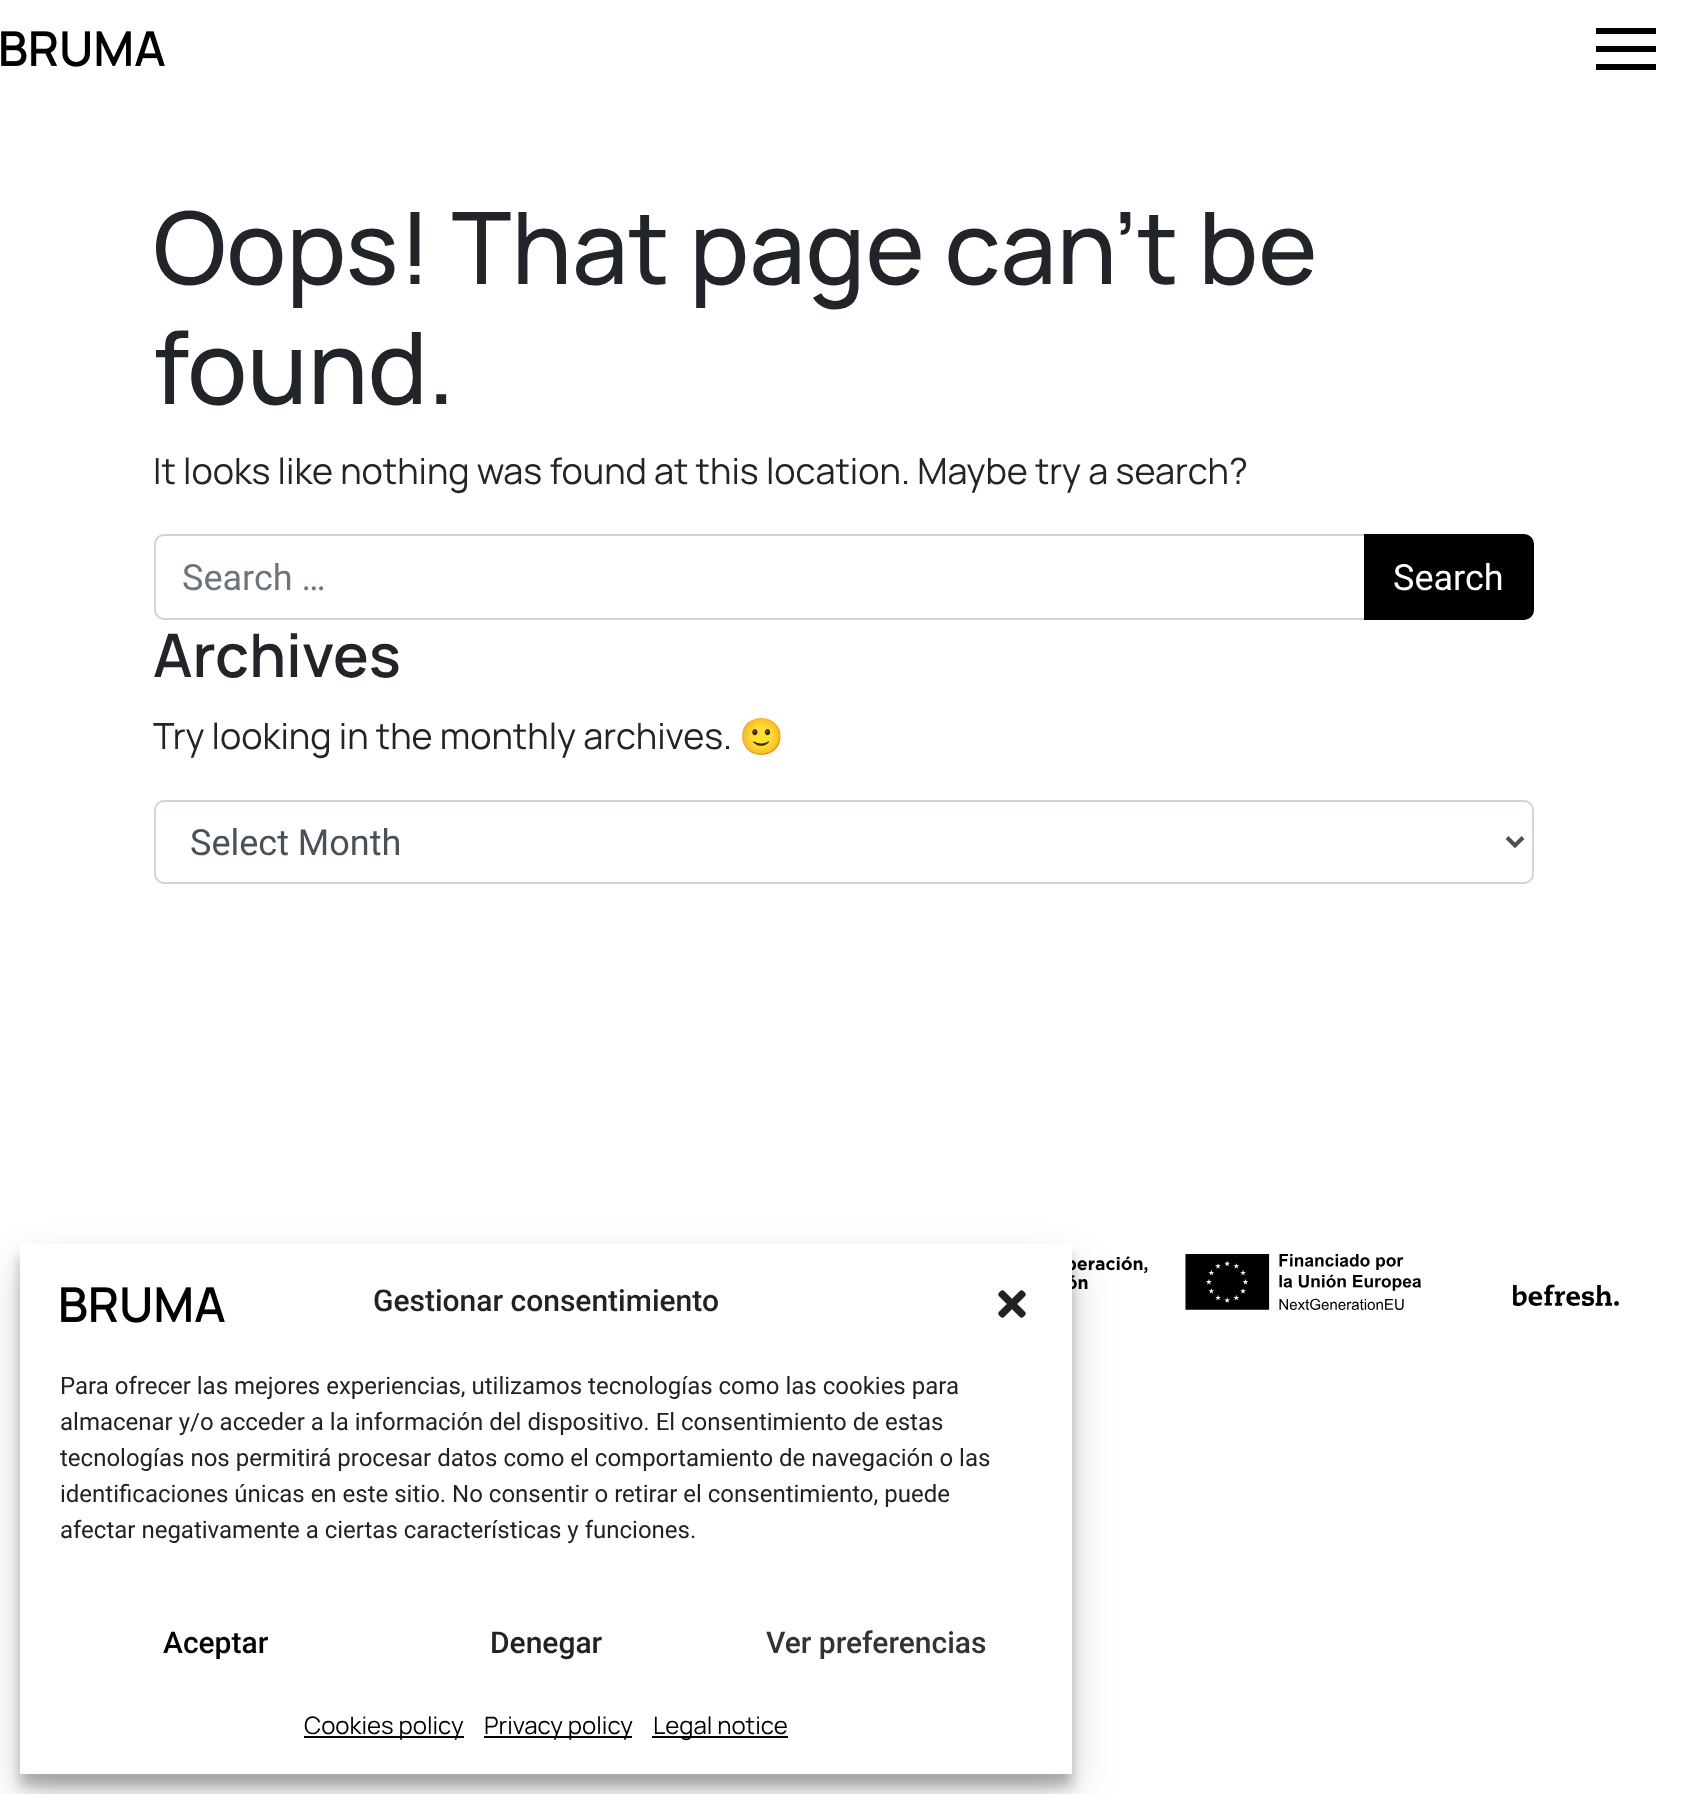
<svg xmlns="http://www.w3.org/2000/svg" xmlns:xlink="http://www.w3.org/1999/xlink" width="1686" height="1794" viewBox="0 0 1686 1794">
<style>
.cls-1{font:500 100px Manrope;fill:#212529}
.cls-2{font:36px Manrope;fill:#212529}
.cls-3{font:36px Roboto;fill:#6c757d}
.cls-4{font:36px Roboto;fill:#ffffff}
.cls-5{font:600 60px Manrope;fill:#212529}
.cls-6{font:36px Noto Color Emoji;fill:#212529}
.cls-7{font:36px Roboto;fill:#495057}
.cls-8{font:500 30px Roboto;fill:#222222}
.cls-9{font:24px Roboto;fill:#222222}
.cls-10{font:500 30px Roboto;fill:#000000}
.cls-11{font:500 30px Roboto;fill:#333333}
.cls-12{font:24px Manrope;fill:#000000}
</style>
<rect width="100%" height="100%" fill="#ffffff"/>
<image xlink:href="image0.png" x="1" y="31" width="164" height="36"/>
<rect fill="#000000" x="1596" y="28" width="60" height="6"/>
<rect fill="#000000" x="1596" y="46" width="60" height="6"/>
<rect fill="#000000" x="1596" y="64" width="60" height="6"/>
<path fill="none" stroke="#ced4da" stroke-width="2" d="M164 535H1365V619H164C159 619 155 615 155 610V544C155 539 159 535 164 535Z"/>
<path fill="#000000" stroke="#000000" stroke-width="2" d="M1365 535H1524C1529 535 1533 539 1533 544V610C1533 615 1529 619 1524 619H1365Z"/>
<rect fill="none" stroke="#ced4da" stroke-width="2" x="155" y="801" width="1378" height="82" rx="9"/>
<path fill="none" stroke="#495057" stroke-width="4" d="M1507 837.5L1515 845.5L1523 837.5"/>
<image xlink:href="image1.png" x="1072" y="1256" width="76" height="33"/>
<image xlink:href="image2.png" x="1185" y="1254" width="236" height="56"/>
<image xlink:href="image3.png" x="1513" y="1284" width="106" height="22"/>
<rect fill="#000000" fill-opacity="0.23" filter="blur(6px)" x="20" y="1256" width="1052" height="530"/>
<rect fill="#000000" fill-opacity="0.19" filter="blur(20px)" x="20" y="1264" width="1052" height="530"/>
<rect fill="#ffffff" x="20" y="1244" width="1052" height="530"/>
<image xlink:href="image0.png" x="61" y="1287" width="164" height="36"/>
<image xlink:href="image4.png" x="998" y="1290" width="28" height="28"/>
<rect fill="#000000" x="304" y="1736" width="160" height="2"/>
<rect fill="#000000" x="484" y="1736" width="148" height="2"/>
<rect fill="#000000" x="652" y="1736" width="136" height="2"/>
<text class="cls-1"><tspan x="153" y="284">Oops! That page can’t be</tspan><tspan x="153" y="404">found.</tspan></text>
<text class="cls-2" x="153" y="484">It looks like nothing was found at this location. Maybe try a search?</text>
<text class="cls-3" x="182" y="590">Search …</text>
<text class="cls-4" x="1393" y="590">Search</text>
<text class="cls-5" x="153" y="677">Archives</text>
<text class="cls-2" x="153" y="749">Try looking in the monthly archives.</text>
<text class="cls-6" x="739" y="749">🙂</text>
<text class="cls-7" x="190" y="855">Select Month</text>
<text class="cls-8" x="373" y="1311">Gestionar consentimiento</text>
<text class="cls-9"><tspan x="60" y="1394">Para ofrecer las mejores experiencias, utilizamos tecnologías como las cookies para</tspan><tspan x="60" y="1430">almacenar y/o acceder a la información del dispositivo. El consentimiento de estas</tspan><tspan x="60" y="1466">tecnologías nos permitirá procesar datos como el comportamiento de navegación o las</tspan><tspan x="60" y="1502">identificaciones únicas en este sitio. No consentir o retirar el consentimiento, puede</tspan><tspan x="60" y="1538">afectar negativamente a ciertas características y funciones.</tspan></text>
<text class="cls-10" x="163" y="1653">Aceptar</text>
<text class="cls-8" x="490" y="1653">Denegar</text>
<text class="cls-11" x="766" y="1653">Ver preferencias</text>
<text class="cls-12" x="304" y="1734">Cookies policy</text>
<text class="cls-12" x="484" y="1734">Privacy policy</text>
<text class="cls-12" x="653" y="1734">Legal notice</text>
</svg>
